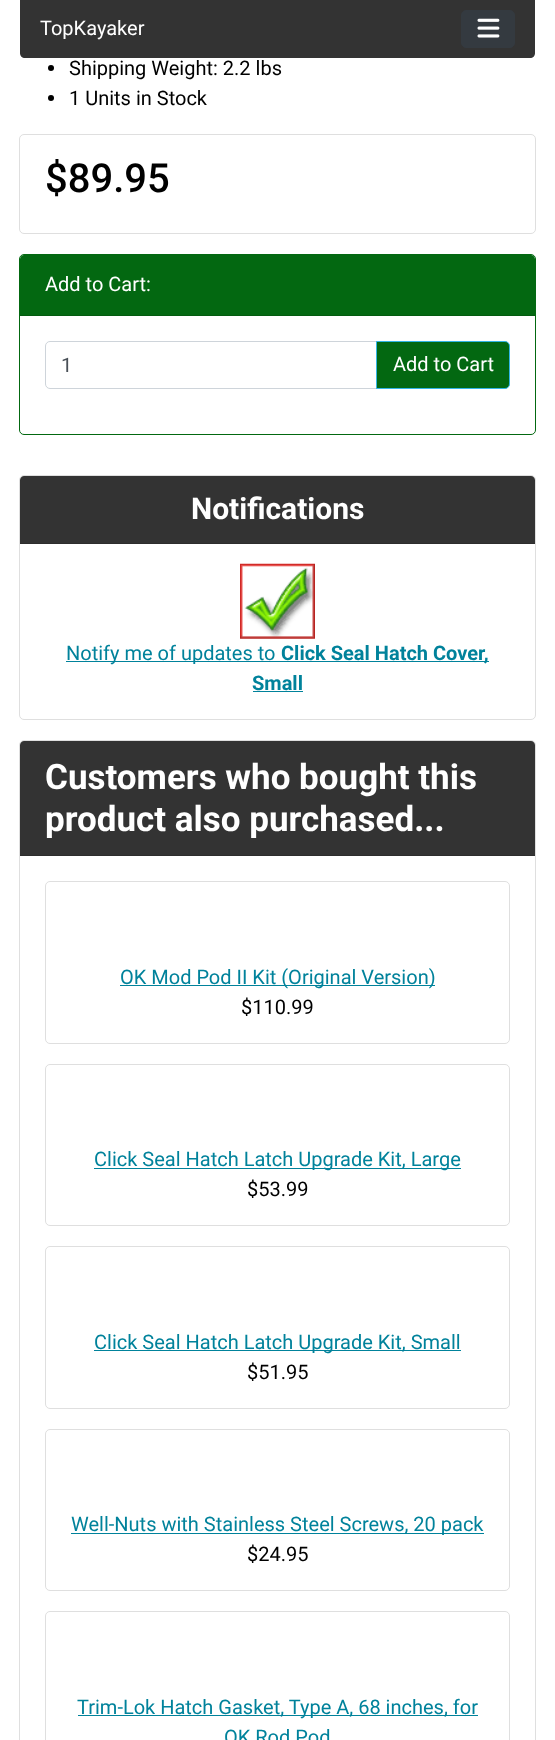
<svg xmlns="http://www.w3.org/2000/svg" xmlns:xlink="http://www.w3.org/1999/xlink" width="555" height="1740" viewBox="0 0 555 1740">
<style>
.cls-1{font:20px Roboto;fill:#ffffff}
.cls-2{font:20px Roboto;fill:#000000}
.cls-3{font:500 40px Roboto;fill:#000000}
.cls-4{font:20px Roboto;fill:#495057}
.cls-5{font:bold 30px Roboto;fill:#ffffff}
.cls-6{font:20px Roboto;fill:#00829b}
.cls-7{font:bold 20px Roboto;fill:#00829b}
.cls-8{font:bold 35px Roboto;fill:#ffffff}
</style>
<rect width="100%" height="100%" fill="#ffffff"/>
<path fill="#333333" d="M20 0H535V53C535 56 533 58 530 58H25C22 58 20 56 20 53Z"/>
<rect fill="#343a40" stroke="#343a40" x="461.5" y="10.5" width="53" height="37" rx="4.5"/>
<image xlink:href="image0.png" x="477" y="18" width="23" height="20"/>
<circle fill="#000000" cx="51" cy="68" r="3"/>
<circle fill="#000000" cx="51" cy="98" r="3"/>
<rect fill="none" stroke="#dfdfdf" x="19.5" y="134.5" width="516" height="99" rx="4.5"/>
<rect fill="none" stroke="#036811" x="19.5" y="254.5" width="516" height="180" rx="4.5"/>
<path fill="#036811" d="M24 255H531C533 255 535 257 535 259V316H20V259C20 257 22 255 24 255Z"/>
<rect fill="#035b0f" x="20" y="315" width="515" height="1"/>
<path fill="none" stroke="#ced4da" d="M50 341.5H377.5V388.5H50C47.5 388.5 45.5 386.5 45.5 384V346C45.5 343.5 47.5 341.5 50 341.5Z"/>
<path fill="#036811" stroke="#33b5e5" d="M376.5 341.5H505C507.5 341.5 509.5 343.5 509.5 346V384C509.5 386.5 507.5 388.5 505 388.5H376.5Z"/>
<rect fill="none" stroke="#dfdfdf" x="19.5" y="475.5" width="516" height="244" rx="4.5"/>
<path fill="#333333" d="M24 476H531C533 476 535 478 535 480V544H20V480C20 478 22 476 24 476Z"/>
<rect fill="#2d2d2d" x="20" y="543" width="515" height="1"/>
<image xlink:href="image1.png" x="240" y="563" width="75" height="76"/>
<rect fill="#00829b" x="66" y="661" width="423" height="1"/>
<rect fill="#00829b" x="253" y="691" width="50" height="1"/>
<rect fill="none" stroke="#dfdfdf" x="19.5" y="740.5" width="516" height="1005" rx="4.5"/>
<path fill="#333333" d="M24 741H531C533 741 535 743 535 745V856H20V745C20 743 22 741 24 741Z"/>
<rect fill="#2d2d2d" x="20" y="855" width="515" height="1"/>
<rect fill="none" stroke="#dfdfdf" x="45.5" y="881.5" width="464" height="162" rx="4.5"/>
<rect fill="#00829b" x="120" y="985" width="315" height="1"/>
<rect fill="none" stroke="#dfdfdf" x="45.5" y="1064.5" width="464" height="161" rx="4.5"/>
<rect fill="#00829b" x="94" y="1168" width="367" height="1"/>
<rect fill="none" stroke="#dfdfdf" x="45.5" y="1246.5" width="464" height="162" rx="4.5"/>
<rect fill="#00829b" x="94" y="1350" width="367" height="1"/>
<rect fill="none" stroke="#dfdfdf" x="45.5" y="1429.5" width="464" height="161" rx="4.5"/>
<rect fill="#00829b" x="71" y="1533" width="413" height="1"/>
<rect fill="none" stroke="#dfdfdf" x="45.5" y="1611.5" width="464" height="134" rx="4.5"/>
<rect fill="#00829b" x="78" y="1715" width="400" height="1"/>
<text class="cls-1" x="40" y="35">TopKayaker</text>
<text class="cls-2"><tspan x="69" y="75">Shipping Weight: 2.2 lbs</tspan><tspan x="69" y="105">1 Units in Stock</tspan></text>
<text class="cls-3" x="45" y="192">$89.95</text>
<text class="cls-1" x="45" y="291">Add to Cart:</text>
<text class="cls-4" x="61" y="372">1</text>
<text class="cls-1" x="393" y="371">Add to Cart</text>
<text class="cls-5" x="191" y="519">Notifications</text>
<text class="cls-6" x="66" y="660">Notify me of updates to</text>
<text class="cls-7" x="281" y="660">Click Seal Hatch Cover,</text>
<text class="cls-7" x="252" y="690">Small</text>
<text class="cls-8"><tspan x="45" y="789">Customers who bought this</tspan><tspan x="45" y="831">product also purchased...</tspan></text>
<text class="cls-6" x="120" y="984">OK Mod Pod II Kit (Original Version)</text>
<text class="cls-2" x="241" y="1014">$110.99</text>
<text class="cls-6" x="94" y="1166">Click Seal Hatch Latch Upgrade Kit, Large</text>
<text class="cls-2" x="247" y="1196">$53.99</text>
<text class="cls-6" x="94" y="1349">Click Seal Hatch Latch Upgrade Kit, Small</text>
<text class="cls-2" x="247" y="1379">$51.95</text>
<text class="cls-6" x="71" y="1531">Well-Nuts with Stainless Steel Screws, 20 pack</text>
<text class="cls-2" x="247" y="1561">$24.95</text>
<text class="cls-6" x="77" y="1714">Trim-Lok Hatch Gasket, Type A, 68 inches, for</text>
<text class="cls-6" x="224" y="1744">OK Rod Pod</text>
</svg>
